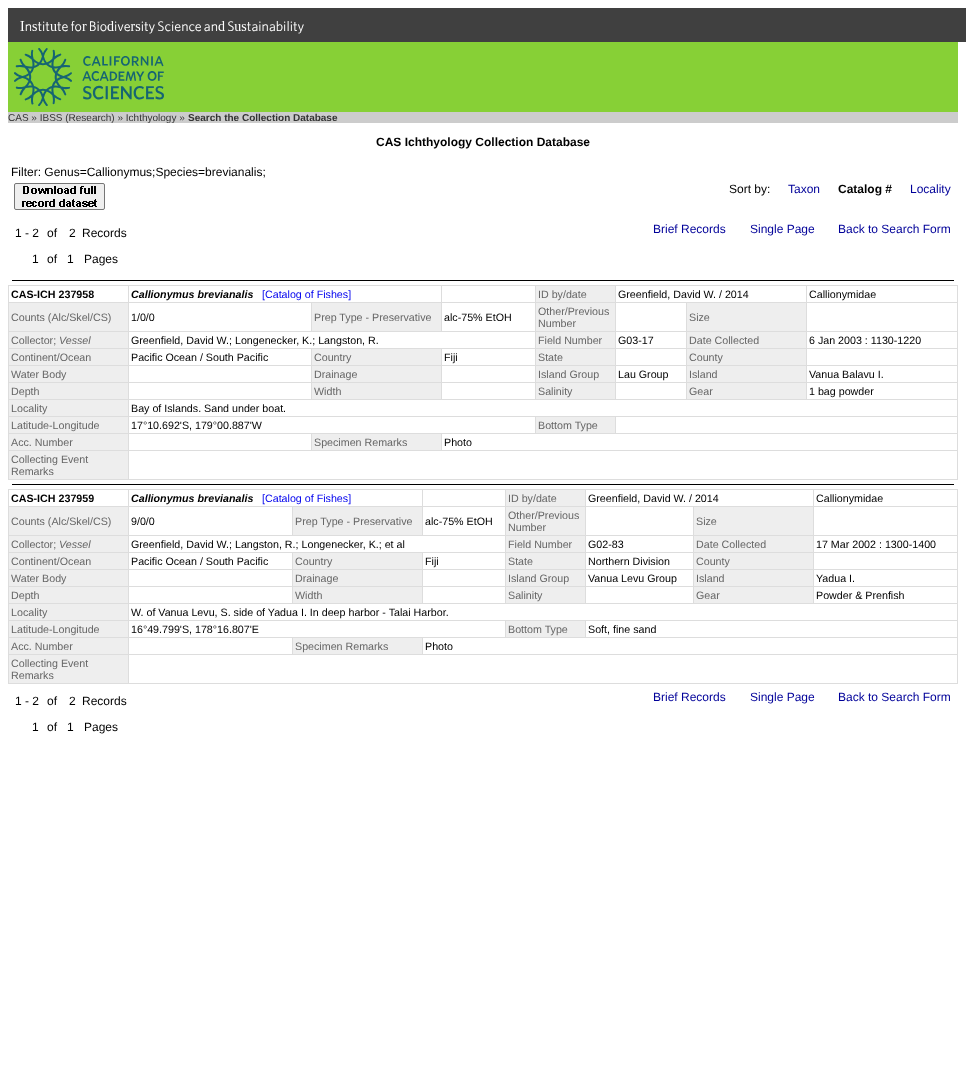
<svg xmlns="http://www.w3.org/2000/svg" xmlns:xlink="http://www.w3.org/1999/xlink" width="966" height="1082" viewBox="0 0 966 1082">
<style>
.cls-1{font:300 14px 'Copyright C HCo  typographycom';fill:#ffffff}
.cls-2{font:10px Liberation Sans;fill:#333333}
.cls-3{font:bold 10px Liberation Sans;fill:#333333}
.cls-4{font:bold 12px Liberation Sans;fill:#000000}
.cls-5{font:12px Liberation Sans;fill:#000000}
.cls-6{font:12px Liberation Sans;fill:#000099}
.cls-7{font:bold 10.7px Liberation Sans;fill:#000000}
.cls-8{font:italic bold 10.7px Liberation Sans;fill:#000000}
.cls-9{font:10.7px Liberation Sans;fill:#0000ee}
.cls-10{font:10.7px Liberation Sans;fill:#666666}
.cls-11{font:10.7px Liberation Sans;fill:#000000}
.cls-12{font:italic 10.7px Liberation Sans;fill:#666666}
</style>
<rect width="100%" height="100%" fill="#ffffff"/>
<rect fill="#404040" x="8" y="8" width="958" height="34"/>
<rect fill="#87d036" x="8" y="42" width="950" height="70"/>
<image xlink:href="image0.png" x="14" y="48" width="150" height="58"/>
<rect fill="#cccccc" x="8" y="112" width="950" height="11"/>
<rect fill="#efefef" stroke="#767676" x="14.5" y="183.5" width="90" height="26" rx="1.5"/>
<image xlink:href="image1.png" x="22" y="186" width="75" height="21"/>
<rect fill="#000000" x="12" y="280" width="942" height="1"/>
<rect fill="#dddddd" x="8" y="285" width="950" height="195"/>
<rect fill="#ffffff" x="9" y="286" width="119" height="16"/>
<rect fill="#ffffff" x="129" y="286" width="312" height="16"/>
<rect fill="#ffffff" x="442" y="286" width="93" height="16"/>
<rect fill="#eeeeee" x="536" y="286" width="79" height="16"/>
<rect fill="#ffffff" x="616" y="286" width="190" height="16"/>
<rect fill="#ffffff" x="807" y="286" width="150" height="16"/>
<rect fill="#eeeeee" x="9" y="303" width="119" height="28"/>
<rect fill="#ffffff" x="129" y="303" width="182" height="28"/>
<rect fill="#eeeeee" x="312" y="303" width="129" height="28"/>
<rect fill="#ffffff" x="442" y="303" width="93" height="28"/>
<rect fill="#eeeeee" x="536" y="303" width="79" height="28"/>
<rect fill="#ffffff" x="616" y="303" width="70" height="28"/>
<rect fill="#eeeeee" x="687" y="303" width="119" height="28"/>
<rect fill="#ffffff" x="807" y="303" width="150" height="28"/>
<rect fill="#eeeeee" x="9" y="332" width="119" height="16"/>
<rect fill="#ffffff" x="129" y="332" width="406" height="16"/>
<rect fill="#eeeeee" x="536" y="332" width="79" height="16"/>
<rect fill="#ffffff" x="616" y="332" width="70" height="16"/>
<rect fill="#eeeeee" x="687" y="332" width="119" height="16"/>
<rect fill="#ffffff" x="807" y="332" width="150" height="16"/>
<rect fill="#eeeeee" x="9" y="349" width="119" height="16"/>
<rect fill="#ffffff" x="129" y="349" width="182" height="16"/>
<rect fill="#eeeeee" x="312" y="349" width="129" height="16"/>
<rect fill="#ffffff" x="442" y="349" width="93" height="16"/>
<rect fill="#eeeeee" x="536" y="349" width="79" height="16"/>
<rect fill="#ffffff" x="616" y="349" width="70" height="16"/>
<rect fill="#eeeeee" x="687" y="349" width="119" height="16"/>
<rect fill="#ffffff" x="807" y="349" width="150" height="16"/>
<rect fill="#eeeeee" x="9" y="366" width="119" height="16"/>
<rect fill="#ffffff" x="129" y="366" width="182" height="16"/>
<rect fill="#eeeeee" x="312" y="366" width="129" height="16"/>
<rect fill="#ffffff" x="442" y="366" width="93" height="16"/>
<rect fill="#eeeeee" x="536" y="366" width="79" height="16"/>
<rect fill="#ffffff" x="616" y="366" width="70" height="16"/>
<rect fill="#eeeeee" x="687" y="366" width="119" height="16"/>
<rect fill="#ffffff" x="807" y="366" width="150" height="16"/>
<rect fill="#eeeeee" x="9" y="383" width="119" height="16"/>
<rect fill="#ffffff" x="129" y="383" width="182" height="16"/>
<rect fill="#eeeeee" x="312" y="383" width="129" height="16"/>
<rect fill="#ffffff" x="442" y="383" width="93" height="16"/>
<rect fill="#eeeeee" x="536" y="383" width="79" height="16"/>
<rect fill="#ffffff" x="616" y="383" width="70" height="16"/>
<rect fill="#eeeeee" x="687" y="383" width="119" height="16"/>
<rect fill="#ffffff" x="807" y="383" width="150" height="16"/>
<rect fill="#eeeeee" x="9" y="400" width="119" height="16"/>
<rect fill="#ffffff" x="129" y="400" width="828" height="16"/>
<rect fill="#eeeeee" x="9" y="417" width="119" height="16"/>
<rect fill="#ffffff" x="129" y="417" width="406" height="16"/>
<rect fill="#eeeeee" x="536" y="417" width="79" height="16"/>
<rect fill="#ffffff" x="616" y="417" width="341" height="16"/>
<rect fill="#eeeeee" x="9" y="434" width="119" height="16"/>
<rect fill="#ffffff" x="129" y="434" width="182" height="16"/>
<rect fill="#eeeeee" x="312" y="434" width="129" height="16"/>
<rect fill="#ffffff" x="442" y="434" width="515" height="16"/>
<rect fill="#eeeeee" x="9" y="451" width="119" height="28"/>
<rect fill="#ffffff" x="129" y="451" width="828" height="28"/>
<rect fill="#000000" x="12" y="484" width="942" height="1"/>
<rect fill="#dddddd" x="8" y="489" width="950" height="195"/>
<rect fill="#ffffff" x="9" y="490" width="119" height="16"/>
<rect fill="#ffffff" x="129" y="490" width="293" height="16"/>
<rect fill="#ffffff" x="423" y="490" width="82" height="16"/>
<rect fill="#eeeeee" x="506" y="490" width="79" height="16"/>
<rect fill="#ffffff" x="586" y="490" width="227" height="16"/>
<rect fill="#ffffff" x="814" y="490" width="143" height="16"/>
<rect fill="#eeeeee" x="9" y="507" width="119" height="28"/>
<rect fill="#ffffff" x="129" y="507" width="163" height="28"/>
<rect fill="#eeeeee" x="293" y="507" width="129" height="28"/>
<rect fill="#ffffff" x="423" y="507" width="82" height="28"/>
<rect fill="#eeeeee" x="506" y="507" width="79" height="28"/>
<rect fill="#ffffff" x="586" y="507" width="107" height="28"/>
<rect fill="#eeeeee" x="694" y="507" width="119" height="28"/>
<rect fill="#ffffff" x="814" y="507" width="143" height="28"/>
<rect fill="#eeeeee" x="9" y="536" width="119" height="16"/>
<rect fill="#ffffff" x="129" y="536" width="376" height="16"/>
<rect fill="#eeeeee" x="506" y="536" width="79" height="16"/>
<rect fill="#ffffff" x="586" y="536" width="107" height="16"/>
<rect fill="#eeeeee" x="694" y="536" width="119" height="16"/>
<rect fill="#ffffff" x="814" y="536" width="143" height="16"/>
<rect fill="#eeeeee" x="9" y="553" width="119" height="16"/>
<rect fill="#ffffff" x="129" y="553" width="163" height="16"/>
<rect fill="#eeeeee" x="293" y="553" width="129" height="16"/>
<rect fill="#ffffff" x="423" y="553" width="82" height="16"/>
<rect fill="#eeeeee" x="506" y="553" width="79" height="16"/>
<rect fill="#ffffff" x="586" y="553" width="107" height="16"/>
<rect fill="#eeeeee" x="694" y="553" width="119" height="16"/>
<rect fill="#ffffff" x="814" y="553" width="143" height="16"/>
<rect fill="#eeeeee" x="9" y="570" width="119" height="16"/>
<rect fill="#ffffff" x="129" y="570" width="163" height="16"/>
<rect fill="#eeeeee" x="293" y="570" width="129" height="16"/>
<rect fill="#ffffff" x="423" y="570" width="82" height="16"/>
<rect fill="#eeeeee" x="506" y="570" width="79" height="16"/>
<rect fill="#ffffff" x="586" y="570" width="107" height="16"/>
<rect fill="#eeeeee" x="694" y="570" width="119" height="16"/>
<rect fill="#ffffff" x="814" y="570" width="143" height="16"/>
<rect fill="#eeeeee" x="9" y="587" width="119" height="16"/>
<rect fill="#ffffff" x="129" y="587" width="163" height="16"/>
<rect fill="#eeeeee" x="293" y="587" width="129" height="16"/>
<rect fill="#ffffff" x="423" y="587" width="82" height="16"/>
<rect fill="#eeeeee" x="506" y="587" width="79" height="16"/>
<rect fill="#ffffff" x="586" y="587" width="107" height="16"/>
<rect fill="#eeeeee" x="694" y="587" width="119" height="16"/>
<rect fill="#ffffff" x="814" y="587" width="143" height="16"/>
<rect fill="#eeeeee" x="9" y="604" width="119" height="16"/>
<rect fill="#ffffff" x="129" y="604" width="828" height="16"/>
<rect fill="#eeeeee" x="9" y="621" width="119" height="16"/>
<rect fill="#ffffff" x="129" y="621" width="376" height="16"/>
<rect fill="#eeeeee" x="506" y="621" width="79" height="16"/>
<rect fill="#ffffff" x="586" y="621" width="371" height="16"/>
<rect fill="#eeeeee" x="9" y="638" width="119" height="16"/>
<rect fill="#ffffff" x="129" y="638" width="163" height="16"/>
<rect fill="#eeeeee" x="293" y="638" width="129" height="16"/>
<rect fill="#ffffff" x="423" y="638" width="534" height="16"/>
<rect fill="#eeeeee" x="9" y="655" width="119" height="28"/>
<rect fill="#ffffff" x="129" y="655" width="828" height="28"/>
<text class="cls-1" x="20" y="31" word-spacing="-1">Institute for Biodiversity Science and Sustainability</text>
<text class="cls-2" x="8" y="121">CAS » IBSS (Research) » Ichthyology »</text>
<text class="cls-3" x="188" y="121">Search the Collection Database</text>
<text class="cls-4" x="376" y="146">CAS Ichthyology Collection Database</text>
<text class="cls-5" x="11" y="176">Filter: Genus=Callionymus;Species=brevianalis;</text>
<text class="cls-5" x="729" y="193">Sort by:</text>
<text class="cls-6" x="788" y="193">Taxon</text>
<text class="cls-4" x="838" y="193">Catalog #</text>
<text class="cls-6" x="910" y="193">Locality</text>
<text class="cls-5" x="15" y="237">1 - 2</text>
<text class="cls-5" x="47" y="237">of</text>
<text class="cls-5" x="69" y="237">2</text>
<text class="cls-5" x="82" y="237">Records</text>
<text class="cls-5" x="32" y="263">1</text>
<text class="cls-5" x="47" y="263">of</text>
<text class="cls-5" x="67" y="263">1</text>
<text class="cls-5" x="84" y="263">Pages</text>
<text class="cls-6" x="653" y="233">Brief Records</text>
<text class="cls-6" x="750" y="233">Single Page</text>
<text class="cls-6" x="838" y="233">Back to Search Form</text>
<text class="cls-7" x="11" y="298">CAS-ICH 237958</text>
<text class="cls-8" x="131" y="298">Callionymus brevianalis</text>
<text class="cls-9" x="262" y="298">[Catalog of Fishes]</text>
<text class="cls-10" x="538" y="298">ID by/date</text>
<text class="cls-11" x="618" y="298">Greenfield, David W. / 2014</text>
<text class="cls-11" x="809" y="298">Callionymidae</text>
<text class="cls-10" x="11" y="321">Counts (Alc/Skel/CS)</text>
<text class="cls-11" x="131" y="321">1/0/0</text>
<text class="cls-10" x="314" y="321">Prep Type - Preservative</text>
<text class="cls-11" x="444" y="321">alc-75% EtOH</text>
<text class="cls-10"><tspan x="538" y="315">Other/Previous</tspan><tspan x="538" y="327">Number</tspan></text>
<text class="cls-10" x="689" y="321">Size</text>
<text class="cls-10" x="11" y="344">Collector;</text>
<text class="cls-12" x="59" y="344">Vessel</text>
<text class="cls-11" x="131" y="344">Greenfield, David W.; Longenecker, K.; Langston, R.</text>
<text class="cls-10" x="538" y="344">Field Number</text>
<text class="cls-11" x="618" y="344">G03-17</text>
<text class="cls-10" x="689" y="344">Date Collected</text>
<text class="cls-11" x="809" y="344">6 Jan 2003 : 1130-1220</text>
<text class="cls-10" x="11" y="361">Continent/Ocean</text>
<text class="cls-11" x="131" y="361">Pacific Ocean / South Pacific</text>
<text class="cls-10" x="314" y="361">Country</text>
<text class="cls-11" x="444" y="361">Fiji</text>
<text class="cls-10" x="538" y="361">State</text>
<text class="cls-10" x="689" y="361">County</text>
<text class="cls-10" x="11" y="378">Water Body</text>
<text class="cls-10" x="314" y="378">Drainage</text>
<text class="cls-10" x="538" y="378">Island Group</text>
<text class="cls-11" x="618" y="378">Lau Group</text>
<text class="cls-10" x="689" y="378">Island</text>
<text class="cls-11" x="809" y="378">Vanua Balavu I.</text>
<text class="cls-10" x="11" y="395">Depth</text>
<text class="cls-10" x="314" y="395">Width</text>
<text class="cls-10" x="538" y="395">Salinity</text>
<text class="cls-10" x="689" y="395">Gear</text>
<text class="cls-11" x="809" y="395">1 bag powder</text>
<text class="cls-10" x="11" y="412">Locality</text>
<text class="cls-11" x="131" y="412">Bay of Islands. Sand under boat.</text>
<text class="cls-10" x="11" y="429">Latitude-Longitude</text>
<text class="cls-11" x="131" y="429">17°10.692'S, 179°00.887'W</text>
<text class="cls-10" x="538" y="429">Bottom Type</text>
<text class="cls-10" x="11" y="446">Acc. Number</text>
<text class="cls-10" x="314" y="446">Specimen Remarks</text>
<text class="cls-11" x="444" y="446">Photo</text>
<text class="cls-10"><tspan x="11" y="463">Collecting Event</tspan><tspan x="11" y="475">Remarks</tspan></text>
<text class="cls-7" x="11" y="502">CAS-ICH 237959</text>
<text class="cls-8" x="131" y="502">Callionymus brevianalis</text>
<text class="cls-9" x="262" y="502">[Catalog of Fishes]</text>
<text class="cls-10" x="508" y="502">ID by/date</text>
<text class="cls-11" x="588" y="502">Greenfield, David W. / 2014</text>
<text class="cls-11" x="816" y="502">Callionymidae</text>
<text class="cls-10" x="11" y="525">Counts (Alc/Skel/CS)</text>
<text class="cls-11" x="131" y="525">9/0/0</text>
<text class="cls-10" x="295" y="525">Prep Type - Preservative</text>
<text class="cls-11" x="425" y="525">alc-75% EtOH</text>
<text class="cls-10"><tspan x="508" y="519">Other/Previous</tspan><tspan x="508" y="531">Number</tspan></text>
<text class="cls-10" x="696" y="525">Size</text>
<text class="cls-10" x="11" y="548">Collector;</text>
<text class="cls-12" x="59" y="548">Vessel</text>
<text class="cls-11" x="131" y="548">Greenfield, David W.; Langston, R.; Longenecker, K.; et al</text>
<text class="cls-10" x="508" y="548">Field Number</text>
<text class="cls-11" x="588" y="548">G02-83</text>
<text class="cls-10" x="696" y="548">Date Collected</text>
<text class="cls-11" x="816" y="548">17 Mar 2002 : 1300-1400</text>
<text class="cls-10" x="11" y="565">Continent/Ocean</text>
<text class="cls-11" x="131" y="565">Pacific Ocean / South Pacific</text>
<text class="cls-10" x="295" y="565">Country</text>
<text class="cls-11" x="425" y="565">Fiji</text>
<text class="cls-10" x="508" y="565">State</text>
<text class="cls-11" x="588" y="565">Northern Division</text>
<text class="cls-10" x="696" y="565">County</text>
<text class="cls-10" x="11" y="582">Water Body</text>
<text class="cls-10" x="295" y="582">Drainage</text>
<text class="cls-10" x="508" y="582">Island Group</text>
<text class="cls-11" x="588" y="582">Vanua Levu Group</text>
<text class="cls-10" x="696" y="582">Island</text>
<text class="cls-11" x="816" y="582">Yadua I.</text>
<text class="cls-10" x="11" y="599">Depth</text>
<text class="cls-10" x="295" y="599">Width</text>
<text class="cls-10" x="508" y="599">Salinity</text>
<text class="cls-10" x="696" y="599">Gear</text>
<text class="cls-11" x="816" y="599">Powder &amp; Prenfish</text>
<text class="cls-10" x="11" y="616">Locality</text>
<text class="cls-11" x="131" y="616">W. of Vanua Levu, S. side of Yadua I. In deep harbor - Talai Harbor.</text>
<text class="cls-10" x="11" y="633">Latitude-Longitude</text>
<text class="cls-11" x="131" y="633">16°49.799'S, 178°16.807'E</text>
<text class="cls-10" x="508" y="633">Bottom Type</text>
<text class="cls-11" x="588" y="633">Soft, fine sand</text>
<text class="cls-10" x="11" y="650">Acc. Number</text>
<text class="cls-10" x="295" y="650">Specimen Remarks</text>
<text class="cls-11" x="425" y="650">Photo</text>
<text class="cls-10"><tspan x="11" y="667">Collecting Event</tspan><tspan x="11" y="679">Remarks</tspan></text>
<text class="cls-5" x="15" y="705">1 - 2</text>
<text class="cls-5" x="47" y="705">of</text>
<text class="cls-5" x="69" y="705">2</text>
<text class="cls-5" x="82" y="705">Records</text>
<text class="cls-5" x="32" y="731">1</text>
<text class="cls-5" x="47" y="731">of</text>
<text class="cls-5" x="67" y="731">1</text>
<text class="cls-5" x="84" y="731">Pages</text>
<text class="cls-6" x="653" y="701">Brief Records</text>
<text class="cls-6" x="750" y="701">Single Page</text>
<text class="cls-6" x="838" y="701">Back to Search Form</text>
</svg>
